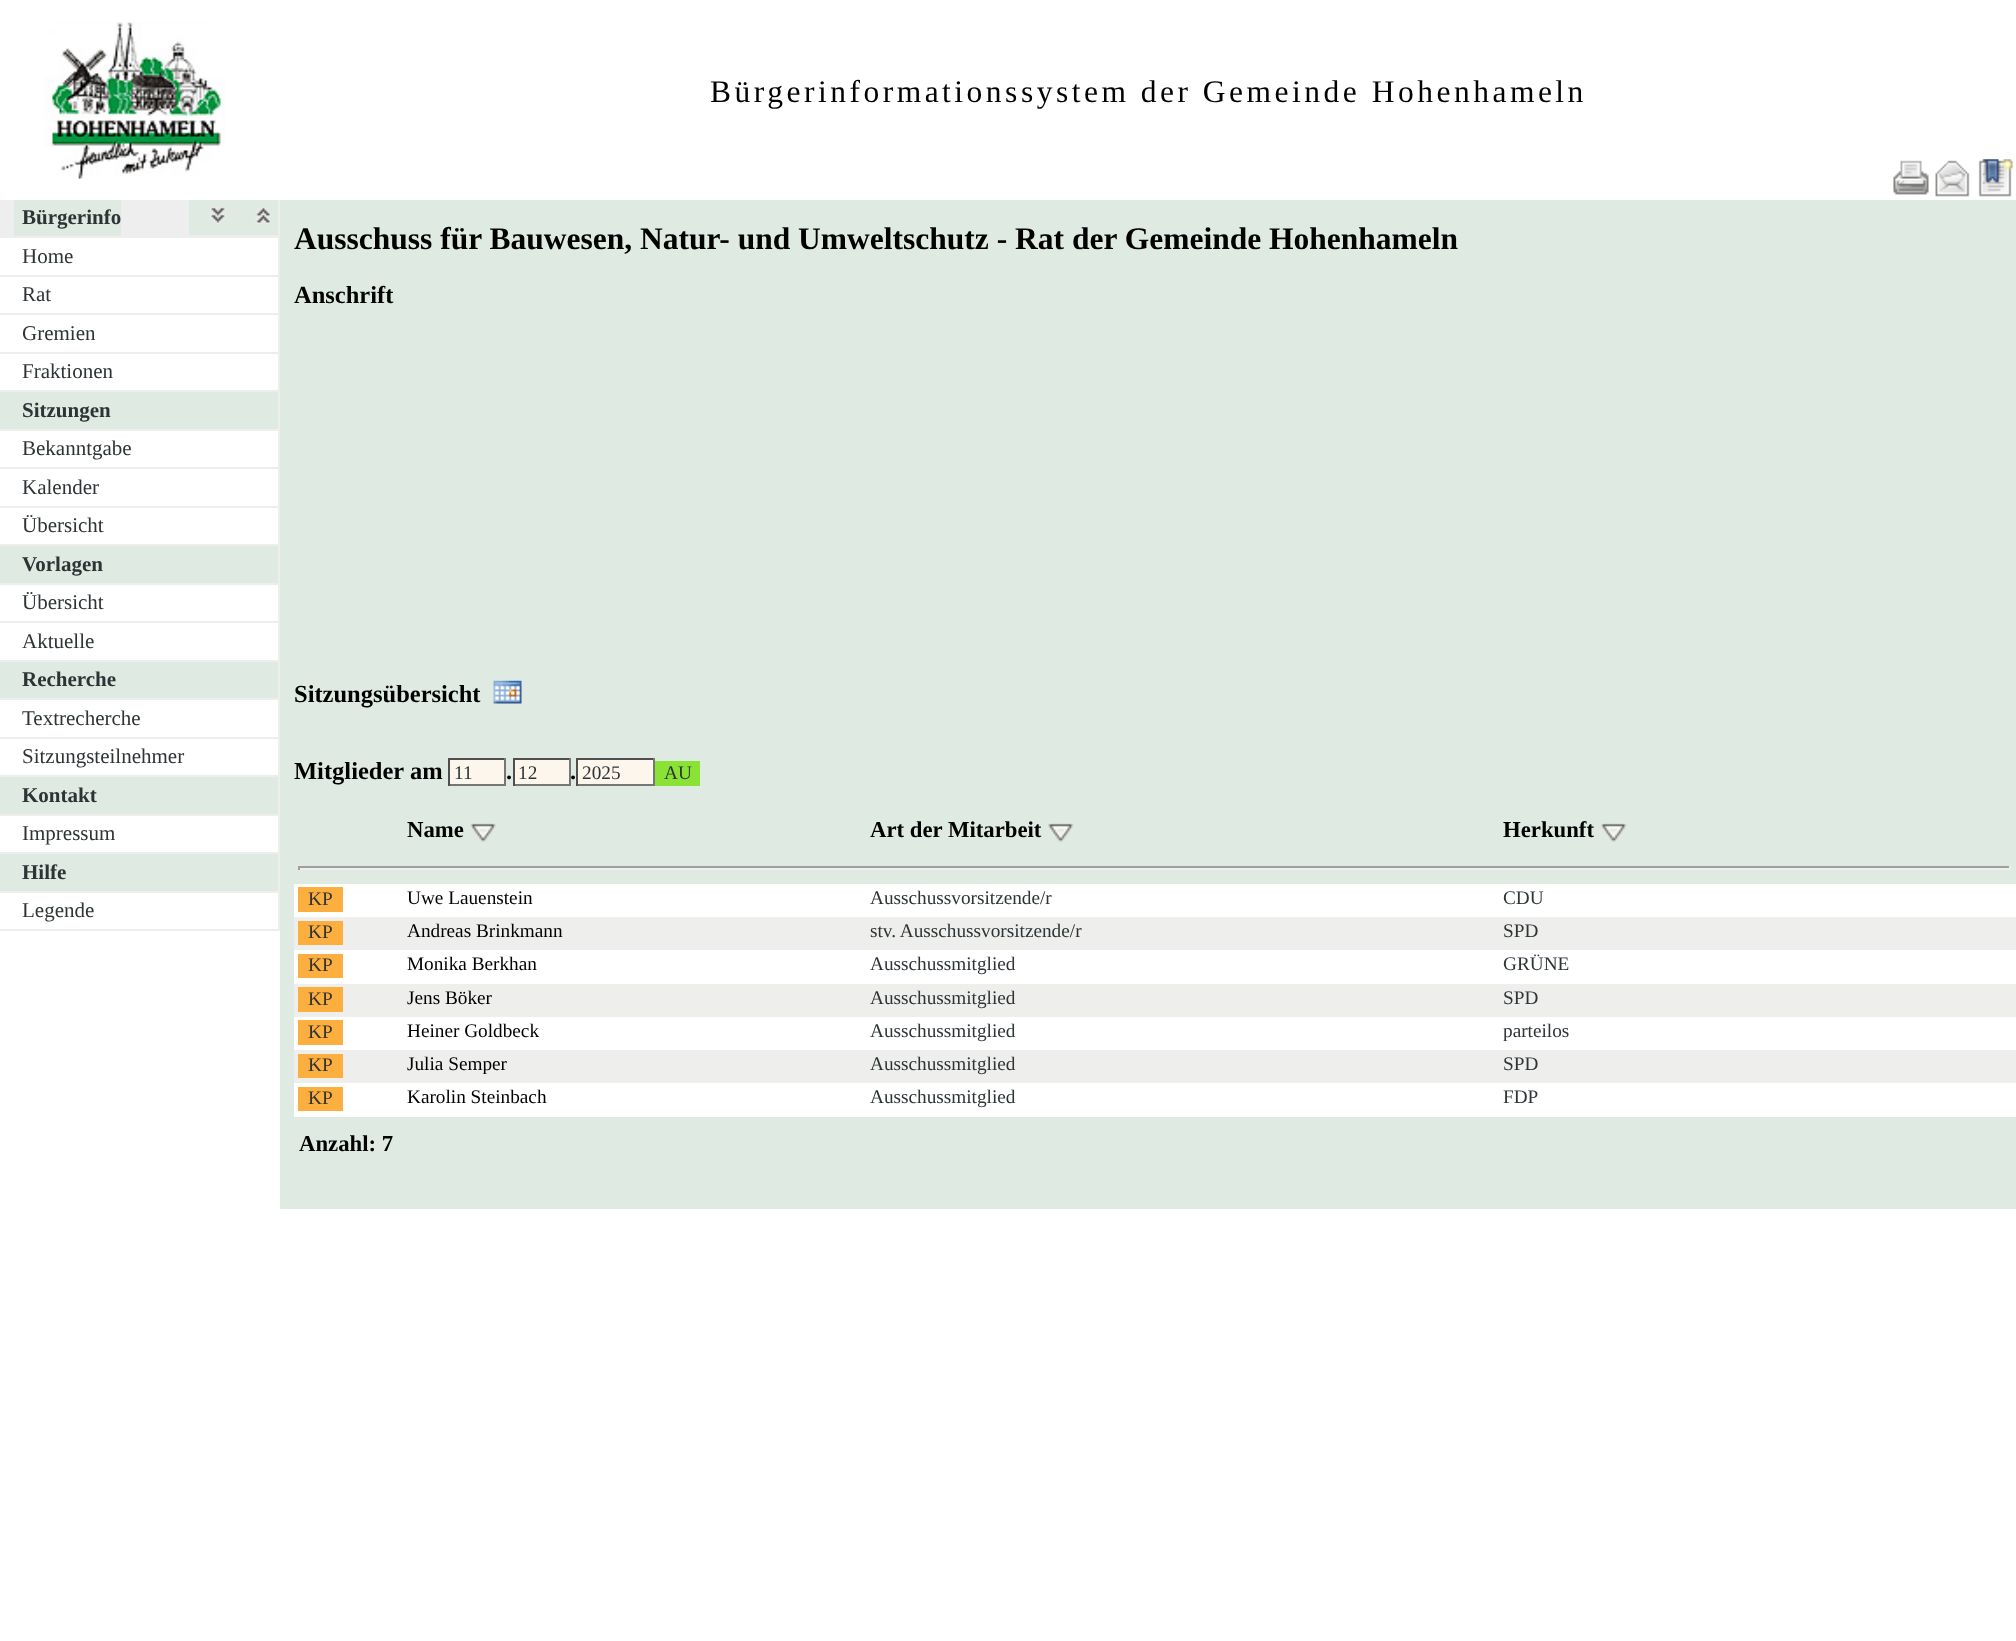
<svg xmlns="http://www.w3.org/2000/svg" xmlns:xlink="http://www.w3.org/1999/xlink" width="2016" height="1641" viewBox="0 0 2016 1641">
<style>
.cls-1{font:bold 21px Liberation Serif;fill:#2e3436}
.cls-2{font:21px Liberation Serif;fill:#2e3436}
.cls-3{font:31.5px Liberation Serif;letter-spacing:3.5px;fill:#000000}
.cls-4{font:bold 31.5px Liberation Serif;fill:#000000}
.cls-5{font:bold 24.5px Liberation Serif;fill:#000000}
.cls-6{font:19.25px Liberation Serif;fill:#2e3436}
.cls-7{font:bold 22.75px Liberation Serif;fill:#000000}
.cls-8{font:19.25px Liberation Serif;fill:#000000}
</style>
<rect width="100%" height="100%" fill="#ffffff"/>
<rect fill="#eeeeee" x="0" y="200" width="280" height="731"/>
<image xlink:href="image0.png" x="44" y="22" width="182" height="157"/>
<rect fill="#dfebe2" x="14" y="200" width="107" height="36"/>
<rect fill="#dfebe2" x="189" y="200" width="89" height="35"/>
<image xlink:href="image1.png" x="210" y="206" width="16" height="18"/>
<image xlink:href="image2.png" x="255" y="206" width="16" height="18"/>
<rect fill="#ffffff" x="0" y="238" width="278" height="37"/>
<rect fill="#ffffff" x="0" y="277" width="278" height="36"/>
<rect fill="#ffffff" x="0" y="315" width="278" height="37"/>
<rect fill="#ffffff" x="0" y="354" width="278" height="36"/>
<rect fill="#dfebe2" x="0" y="392" width="278" height="37"/>
<rect fill="#ffffff" x="0" y="431" width="278" height="36"/>
<rect fill="#ffffff" x="0" y="469" width="278" height="37"/>
<rect fill="#ffffff" x="0" y="508" width="278" height="36"/>
<rect fill="#dfebe2" x="0" y="546" width="278" height="37"/>
<rect fill="#ffffff" x="0" y="585" width="278" height="36"/>
<rect fill="#ffffff" x="0" y="623" width="278" height="37"/>
<rect fill="#dfebe2" x="0" y="662" width="278" height="36"/>
<rect fill="#ffffff" x="0" y="700" width="278" height="37"/>
<rect fill="#ffffff" x="0" y="739" width="278" height="36"/>
<rect fill="#dfebe2" x="0" y="777" width="278" height="37"/>
<rect fill="#ffffff" x="0" y="816" width="278" height="36"/>
<rect fill="#dfebe2" x="0" y="854" width="278" height="37"/>
<rect fill="#ffffff" x="0" y="893" width="278" height="36"/>
<rect fill="#dfebe2" x="280" y="200" width="1736" height="1009"/>
<image xlink:href="image3.png" x="1893" y="160" width="36" height="35"/>
<image xlink:href="image4.png" x="1935" y="160" width="35" height="37"/>
<image xlink:href="image5.png" x="1978" y="159" width="35" height="38"/>
<image xlink:href="image6.png" x="493" y="680" width="29" height="24"/>
<rect fill="#fcf6ed" x="450" y="760" width="54" height="24"/>
<rect fill="#4f4f4f" x="448" y="758" width="58" height="2"/>
<rect fill="#767676" x="504" y="758" width="2" height="28"/>
<rect fill="#767676" x="448" y="784" width="58" height="2"/>
<rect fill="#4f4f4f" x="448" y="758" width="2" height="28"/>
<rect fill="#fcf6ed" x="515" y="760" width="54" height="24"/>
<rect fill="#4f4f4f" x="513" y="758" width="58" height="2"/>
<rect fill="#767676" x="569" y="758" width="2" height="28"/>
<rect fill="#767676" x="513" y="784" width="58" height="2"/>
<rect fill="#4f4f4f" x="513" y="758" width="2" height="28"/>
<rect fill="#fcf6ed" x="578" y="760" width="75" height="24"/>
<rect fill="#4f4f4f" x="576" y="758" width="79" height="2"/>
<rect fill="#767676" x="653" y="758" width="2" height="28"/>
<rect fill="#767676" x="576" y="784" width="79" height="2"/>
<rect fill="#4f4f4f" x="576" y="758" width="2" height="28"/>
<rect fill="#8ae234" x="655" y="761" width="45" height="25"/>
<image xlink:href="image7.png" x="470" y="823" width="26" height="19"/>
<image xlink:href="image8.png" x="1048" y="823" width="26" height="19"/>
<image xlink:href="image9.png" x="1601" y="823" width="26" height="19"/>
<rect fill="#9f9f9f" x="298" y="866" width="1713" height="2"/>
<rect fill="#eeeeee" x="2009" y="866" width="2" height="4"/>
<rect fill="#eeeeee" x="298" y="868" width="1713" height="2"/>
<rect fill="#9f9f9f" x="298" y="866" width="2" height="4"/>
<rect fill="#ffffff" x="294" y="884" width="1722" height="33"/>
<rect fill="#fcaf3e" x="298" y="887" width="45" height="25"/>
<rect fill="#eeeeec" x="294" y="917" width="1722" height="33"/>
<rect fill="#fcaf3e" x="298" y="921" width="45" height="24"/>
<rect fill="#ffffff" x="294" y="950" width="1722" height="34"/>
<rect fill="#fcaf3e" x="298" y="954" width="45" height="24"/>
<rect fill="#eeeeec" x="294" y="984" width="1722" height="33"/>
<rect fill="#fcaf3e" x="298" y="987" width="45" height="25"/>
<rect fill="#ffffff" x="294" y="1017" width="1722" height="33"/>
<rect fill="#fcaf3e" x="298" y="1020" width="45" height="25"/>
<rect fill="#eeeeec" x="294" y="1050" width="1722" height="33"/>
<rect fill="#fcaf3e" x="298" y="1054" width="45" height="24"/>
<rect fill="#ffffff" x="294" y="1083" width="1722" height="34"/>
<rect fill="#fcaf3e" x="298" y="1087" width="45" height="24"/>
<text class="cls-1" x="22" y="224">Bürgerinfo</text>
<text class="cls-2"><tspan x="22" y="263">Home</tspan><tspan x="22" y="301">Rat</tspan><tspan x="22" y="340">Gremien</tspan><tspan x="22" y="378">Fraktionen</tspan></text>
<text class="cls-1" x="22" y="417">Sitzungen</text>
<text class="cls-2"><tspan x="22" y="455">Bekanntgabe</tspan><tspan x="22" y="494">Kalender</tspan><tspan x="22" y="532">Übersicht</tspan></text>
<text class="cls-1" x="22" y="571">Vorlagen</text>
<text class="cls-2"><tspan x="22" y="609">Übersicht</tspan><tspan x="22" y="648">Aktuelle</tspan></text>
<text class="cls-1" x="22" y="686">Recherche</text>
<text class="cls-2"><tspan x="22" y="725">Textrecherche</tspan><tspan x="22" y="763">Sitzungsteilnehmer</tspan></text>
<text class="cls-1" x="22" y="802">Kontakt</text>
<text class="cls-2" x="22" y="840">Impressum</text>
<text class="cls-1" x="22" y="879">Hilfe</text>
<text class="cls-2" x="22" y="917">Legende</text>
<text class="cls-3" x="710" y="102">Bürgerinformationssystem der Gemeinde Hohenhameln</text>
<text class="cls-4" x="294" y="249">Ausschuss für Bauwesen, Natur- und Umweltschutz - Rat der Gemeinde Hohenhameln</text>
<text class="cls-5" x="294" y="303">Anschrift</text>
<text class="cls-5" x="294" y="702">Sitzungsübersicht</text>
<text class="cls-5" x="294" y="779">Mitglieder am</text>
<text class="cls-6" x="454" y="779">11</text>
<text class="cls-5" x="506" y="779">.</text>
<text class="cls-6" x="518" y="779">12</text>
<text class="cls-5" x="570" y="779">.</text>
<text class="cls-6" x="582" y="779">2025</text>
<text class="cls-6" x="664" y="779">AU</text>
<text class="cls-7" x="407" y="837">Name</text>
<text class="cls-7" x="870" y="837">Art der Mitarbeit</text>
<text class="cls-7" x="1503" y="837">Herkunft</text>
<text class="cls-6" x="308" y="905">KP</text>
<text class="cls-8" x="407" y="904">Uwe Lauenstein</text>
<text class="cls-6" x="870" y="904">Ausschussvorsitzende/r</text>
<text class="cls-6" x="1503" y="904">CDU</text>
<text class="cls-6" x="308" y="938">KP</text>
<text class="cls-8" x="407" y="937">Andreas Brinkmann</text>
<text class="cls-6" x="870" y="937">stv. Ausschussvorsitzende/r</text>
<text class="cls-6" x="1503" y="937">SPD</text>
<text class="cls-6" x="308" y="971">KP</text>
<text class="cls-8" x="407" y="970">Monika Berkhan</text>
<text class="cls-6" x="870" y="970">Ausschussmitglied</text>
<text class="cls-6" x="1503" y="970">GRÜNE</text>
<text class="cls-6" x="308" y="1005">KP</text>
<text class="cls-8" x="407" y="1004">Jens Böker</text>
<text class="cls-6" x="870" y="1004">Ausschussmitglied</text>
<text class="cls-6" x="1503" y="1004">SPD</text>
<text class="cls-6" x="308" y="1038">KP</text>
<text class="cls-8" x="407" y="1037">Heiner Goldbeck</text>
<text class="cls-6" x="870" y="1037">Ausschussmitglied</text>
<text class="cls-6" x="1503" y="1037">parteilos</text>
<text class="cls-6" x="308" y="1071">KP</text>
<text class="cls-8" x="407" y="1070">Julia Semper</text>
<text class="cls-6" x="870" y="1070">Ausschussmitglied</text>
<text class="cls-6" x="1503" y="1070">SPD</text>
<text class="cls-6" x="308" y="1104">KP</text>
<text class="cls-8" x="407" y="1103">Karolin Steinbach</text>
<text class="cls-6" x="870" y="1103">Ausschussmitglied</text>
<text class="cls-6" x="1503" y="1103">FDP</text>
<text class="cls-7" x="299" y="1151">Anzahl: 7</text>
</svg>
